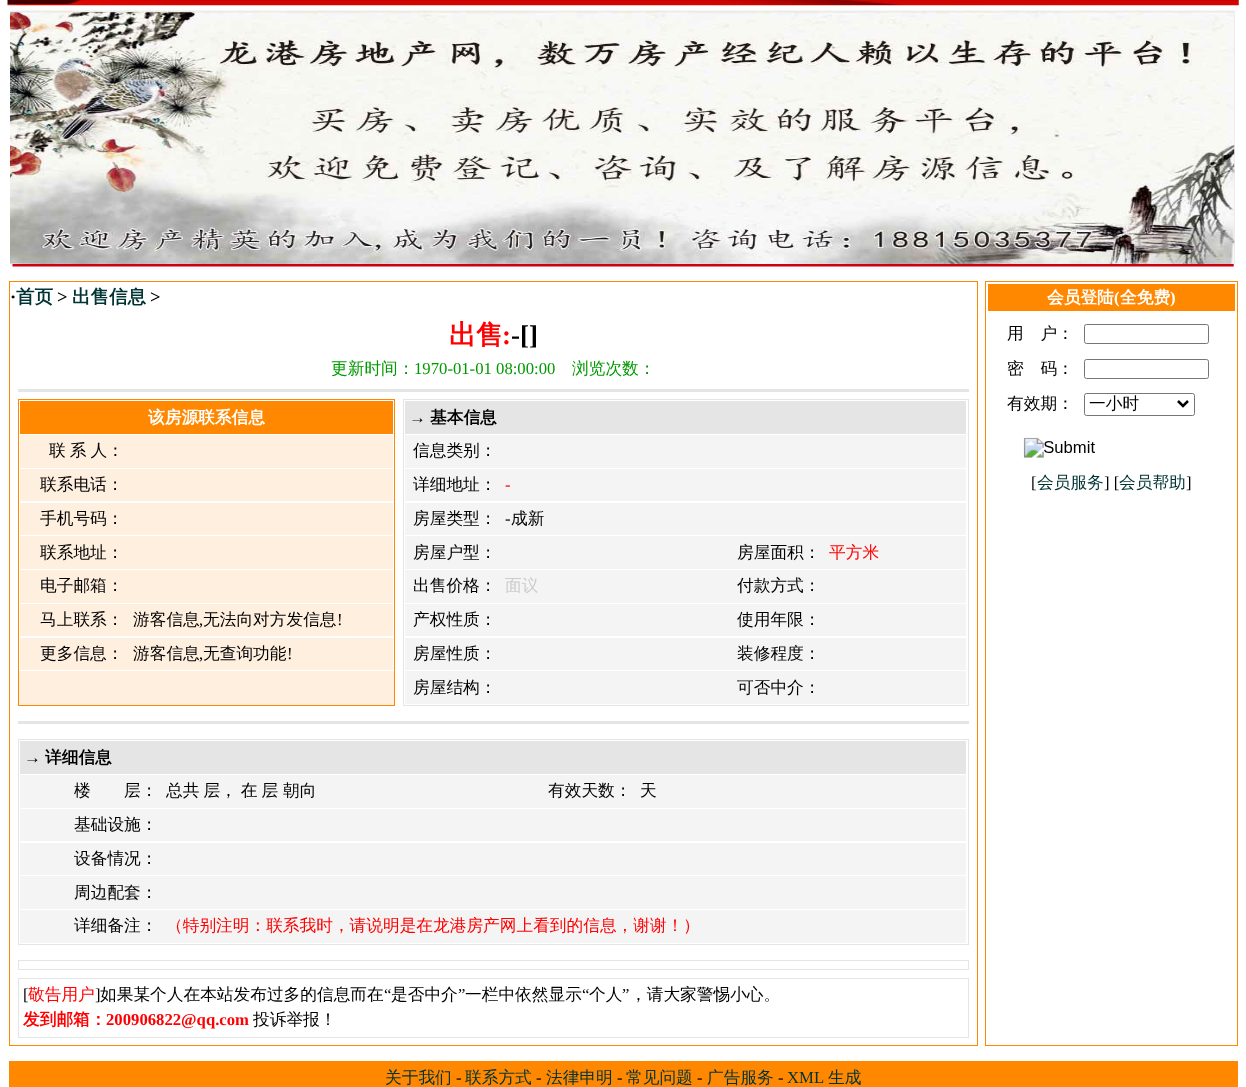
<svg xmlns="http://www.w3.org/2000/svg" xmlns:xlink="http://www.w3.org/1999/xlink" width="1246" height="1087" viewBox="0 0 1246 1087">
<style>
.cls-1{font:bold 18.5px Liberation Serif;fill:#000000}
.cls-2{font:bold 18.5px WenQuanYi Zen Hei;fill:#003333}
.cls-3{font:bold 27px WenQuanYi Zen Hei;fill:#ff0000}
.cls-4{font:bold 27px Liberation Serif;fill:#ff0000}
.cls-5{font:bold 27px Liberation Serif;fill:#000000}
.cls-6{font:500 16.7px WenQuanYi Zen Hei;fill:#009900}
.cls-7{font:16.7px Liberation Serif;fill:#009900}
.cls-8{font:bold 16.7px WenQuanYi Zen Hei;fill:#ffffff}
.cls-9{font:500 16.7px WenQuanYi Zen Hei;fill:#000000}
.cls-10{font:16.7px Liberation Serif;fill:#000000}
.cls-11{font:bold 16.7px Liberation Serif;fill:#000000}
.cls-12{font:bold 16.7px WenQuanYi Zen Hei;fill:#000000}
.cls-13{font:16.7px Liberation Serif;fill:#ff0000}
.cls-14{font:500 16.7px WenQuanYi Zen Hei;fill:#ff0000}
.cls-15{font:500 16.7px WenQuanYi Zen Hei;fill:#cccccc}
.cls-16{font:bold 16.7px WenQuanYi Zen Hei;fill:#ff0000}
.cls-17{font:bold 16.7px Liberation Serif;fill:#ff0000}
.cls-18{font:bold 16.7px Liberation Serif;fill:#ffffff}
.cls-19{font:500 16.7px WenQuanYi Zen Hei;fill:#003333}
.cls-20{font:16.7px Liberation Serif;fill:#003333}
</style>
<rect width="100%" height="100%" fill="#ffffff"/>
<image xlink:href="image0.png" x="7" y="0" width="1232" height="6"/>
<image xlink:href="image1.png" x="10" y="10" width="1225" height="254"/>
<image xlink:href="image2.png" x="12" y="264" width="1222" height="3"/>
<rect fill="none" stroke="#ff8800" x="9.5" y="281.5" width="968" height="764"/>
<rect fill="#e5e5e5" x="18" y="389" width="951" height="3"/>
<rect fill="#ffefdf" x="19" y="671" width="375" height="34"/>
<rect fill="none" stroke="#ff8800" x="18.5" y="399.5" width="376" height="306"/>
<rect fill="#ff8800" x="20" y="401" width="373" height="33"/>
<rect fill="#ffefdf" x="20" y="435" width="373" height="33"/>
<rect fill="#ffefdf" x="20" y="469" width="373" height="32"/>
<rect fill="#ffefdf" x="20" y="503" width="373" height="32"/>
<rect fill="#ffefdf" x="20" y="536" width="373" height="33"/>
<rect fill="#ffefdf" x="20" y="570" width="373" height="33"/>
<rect fill="#ffefdf" x="20" y="604" width="373" height="32"/>
<rect fill="#ffefdf" x="20" y="638" width="373" height="32"/>
<rect fill="none" stroke="#e5e5e5" x="403.5" y="399.5" width="565" height="306"/>
<rect fill="#e5e5e5" x="405" y="401" width="561" height="33"/>
<rect fill="#f4f4f4" x="405" y="435" width="561" height="33"/>
<rect fill="#f4f4f4" x="405" y="469" width="561" height="32"/>
<rect fill="#f4f4f4" x="405" y="503" width="561" height="32"/>
<rect fill="#f4f4f4" x="405" y="536" width="561" height="33"/>
<rect fill="#f4f4f4" x="405" y="570" width="561" height="33"/>
<rect fill="#f4f4f4" x="405" y="604" width="561" height="32"/>
<rect fill="#f4f4f4" x="405" y="638" width="561" height="32"/>
<rect fill="#f4f4f4" x="405" y="671" width="561" height="33"/>
<rect fill="#e5e5e5" x="18" y="721" width="951" height="3"/>
<rect fill="none" stroke="#e5e5e5" x="18.5" y="739.5" width="950" height="205"/>
<rect fill="#e5e5e5" x="20" y="741" width="946" height="33"/>
<rect fill="#f4f4f4" x="20" y="775" width="946" height="33"/>
<rect fill="#f4f4f4" x="20" y="809" width="946" height="32"/>
<rect fill="#f4f4f4" x="20" y="843" width="946" height="32"/>
<rect fill="#f4f4f4" x="20" y="876" width="946" height="33"/>
<rect fill="#f4f4f4" x="20" y="910" width="946" height="33"/>
<rect fill="none" stroke="#e5e5e5" x="18.5" y="960.5" width="950" height="9"/>
<rect fill="none" stroke="#e5e5e5" x="18.5" y="978.5" width="950" height="59"/>
<rect fill="none" stroke="#ff8800" x="985.5" y="281.5" width="252" height="764"/>
<rect fill="#ff8800" x="988" y="284" width="247" height="27"/>
<rect fill="none" stroke="#767676" x="1084.5" y="324.5" width="124" height="19" rx="2"/>
<rect fill="none" stroke="#767676" x="1084.5" y="359.5" width="124" height="19" rx="2"/>
<rect fill="none" stroke="#767676" x="1084.5" y="393.5" width="110" height="22" rx="2"/>
<path fill="none" stroke="#000000" stroke-width="2.5" d="M1178 401L1183 406L1188 401"/>
<image xlink:href="image3.png" x="1023" y="437" width="72" height="21"/>
<rect fill="#ff8800" x="9" y="1061" width="1229" height="26"/>
<text class="cls-1" x="10" y="303">·</text>
<text class="cls-2" x="16" y="303">首页</text>
<text class="cls-1" x="57" y="303">&gt;</text>
<text class="cls-2" x="72" y="303">出售信息</text>
<text class="cls-1" x="150" y="303">&gt;</text>
<text class="cls-3" x="449" y="344">出售</text>
<text class="cls-4" x="502" y="344">:</text>
<text class="cls-5" x="511" y="344">-[]</text>
<text class="cls-6" x="331" y="374">更新时间：</text>
<text class="cls-7" x="414" y="374">1970-01-01 08:00:00</text>
<text class="cls-6" x="572" y="374">浏览次数：</text>
<text class="cls-8" x="148" y="423">该房源联系信息</text>
<text class="cls-9" x="49" y="456" word-spacing="-1">联 系 人：</text>
<text class="cls-9" x="40" y="490">联系电话：</text>
<text class="cls-9" x="40" y="524">手机号码：</text>
<text class="cls-9"><tspan x="40" y="558">联系地址：</tspan><tspan x="40" y="591">电子邮箱：</tspan></text>
<text class="cls-9" x="40" y="625">马上联系：</text>
<text class="cls-9" x="133" y="625">游客信息</text>
<text class="cls-10" x="199" y="625">,</text>
<text class="cls-9" x="203" y="625">无法向对方发信息</text>
<text class="cls-10" x="337" y="625">!</text>
<text class="cls-9" x="40" y="659">更多信息：</text>
<text class="cls-9" x="133" y="659">游客信息</text>
<text class="cls-10" x="199" y="659">,</text>
<text class="cls-9" x="203" y="659">无查询功能</text>
<text class="cls-10" x="287" y="659">!</text>
<text class="cls-11" x="409" y="423">→</text>
<text class="cls-12" x="430" y="423">基本信息</text>
<text class="cls-9" x="413" y="456">信息类别：</text>
<text class="cls-9" x="413" y="490">详细地址：</text>
<text class="cls-13" x="505" y="490">-</text>
<text class="cls-9" x="413" y="524">房屋类型：</text>
<text class="cls-10" x="505" y="524">-</text>
<text class="cls-9" x="511" y="524">成新</text>
<text class="cls-9" x="413" y="558">房屋户型：</text>
<text class="cls-9" x="737" y="558">房屋面积：</text>
<text class="cls-14" x="829" y="558">平方米</text>
<text class="cls-9" x="413" y="591">出售价格：</text>
<text class="cls-15" x="505" y="591">面议</text>
<text class="cls-9" x="737" y="591">付款方式：</text>
<text class="cls-9" x="413" y="625">产权性质：</text>
<text class="cls-9" x="737" y="625">使用年限：</text>
<text class="cls-9" x="413" y="659">房屋性质：</text>
<text class="cls-9" x="737" y="659">装修程度：</text>
<text class="cls-9" x="413" y="693">房屋结构：</text>
<text class="cls-9" x="737" y="693">可否中介：</text>
<text class="cls-11" x="24" y="763">→</text>
<text class="cls-12" x="45" y="763">详细信息</text>
<text class="cls-9" x="74" y="796">楼　　层：</text>
<text class="cls-9" x="166" y="796" word-spacing="-1">总共 层， 在 层</text>
<text class="cls-9" x="283" y="796">朝向</text>
<text class="cls-9" x="548" y="796">有效天数：</text>
<text class="cls-9" x="640" y="796">天</text>
<text class="cls-9" x="74" y="830">基础设施：</text>
<text class="cls-9" x="74" y="864">设备情况：</text>
<text class="cls-9"><tspan x="74" y="898">周边配套：</tspan><tspan x="74" y="931">详细备注：</tspan></text>
<text class="cls-14" x="166" y="931">（特别注明：联系我时，请说明是在龙港房产网上看到的信息，谢谢！）</text>
<text class="cls-10" x="23" y="1000">[</text>
<text class="cls-14" x="28" y="1000">敬告用户</text>
<text class="cls-10" x="95" y="1000">]</text>
<text class="cls-9" x="100" y="1000">如果某个人在本站发布过多的信息而在</text>
<text class="cls-10" x="384" y="1000">“</text>
<text class="cls-9" x="391" y="1000">是否中介</text>
<text class="cls-10" x="458" y="1000">”</text>
<text class="cls-9" x="465" y="1000">一栏中依然显示</text>
<text class="cls-10" x="582" y="1000">“</text>
<text class="cls-9" x="589" y="1000">个人</text>
<text class="cls-10" x="622" y="1000">”</text>
<text class="cls-9" x="630" y="1000">，请大家警惕小心。</text>
<text class="cls-16" x="23" y="1025">发到邮箱：</text>
<text class="cls-17" x="106" y="1025">200906822@qq.com</text>
<text class="cls-9" x="253" y="1025">投诉举报！</text>
<text class="cls-8" x="1047" y="303">会员登陆</text>
<text class="cls-18" x="1114" y="303">(</text>
<text class="cls-8" x="1120" y="303">全免费</text>
<text class="cls-18" x="1170" y="303">)</text>
<text class="cls-9" x="1007" y="339">用　户：</text>
<text class="cls-9" x="1007" y="374">密　码：</text>
<text class="cls-9" x="1007" y="409">有效期：</text>
<text class="cls-9" x="1089" y="409">一小时</text>
<text class="cls-10" x="1031" y="488">[</text>
<text class="cls-19" x="1037" y="488">会员服务</text>
<text class="cls-10" x="1104" y="488">] [</text>
<text class="cls-19" x="1119" y="488">会员帮助</text>
<text class="cls-10" x="1186" y="488">]</text>
<text class="cls-19" x="385" y="1083">关于我们</text>
<text class="cls-10" x="456" y="1083">-</text>
<text class="cls-19" x="465" y="1083">联系方式</text>
<text class="cls-10" x="536" y="1083">-</text>
<text class="cls-19" x="546" y="1083">法律申明</text>
<text class="cls-10" x="617" y="1083">-</text>
<text class="cls-19" x="626" y="1083">常见问题</text>
<text class="cls-10" x="697" y="1083">-</text>
<text class="cls-19" x="707" y="1083">广告服务</text>
<text class="cls-10" x="778" y="1083">-</text>
<text class="cls-20" x="787" y="1083">XML</text>
<text class="cls-19" x="828" y="1083">生成</text>
</svg>
